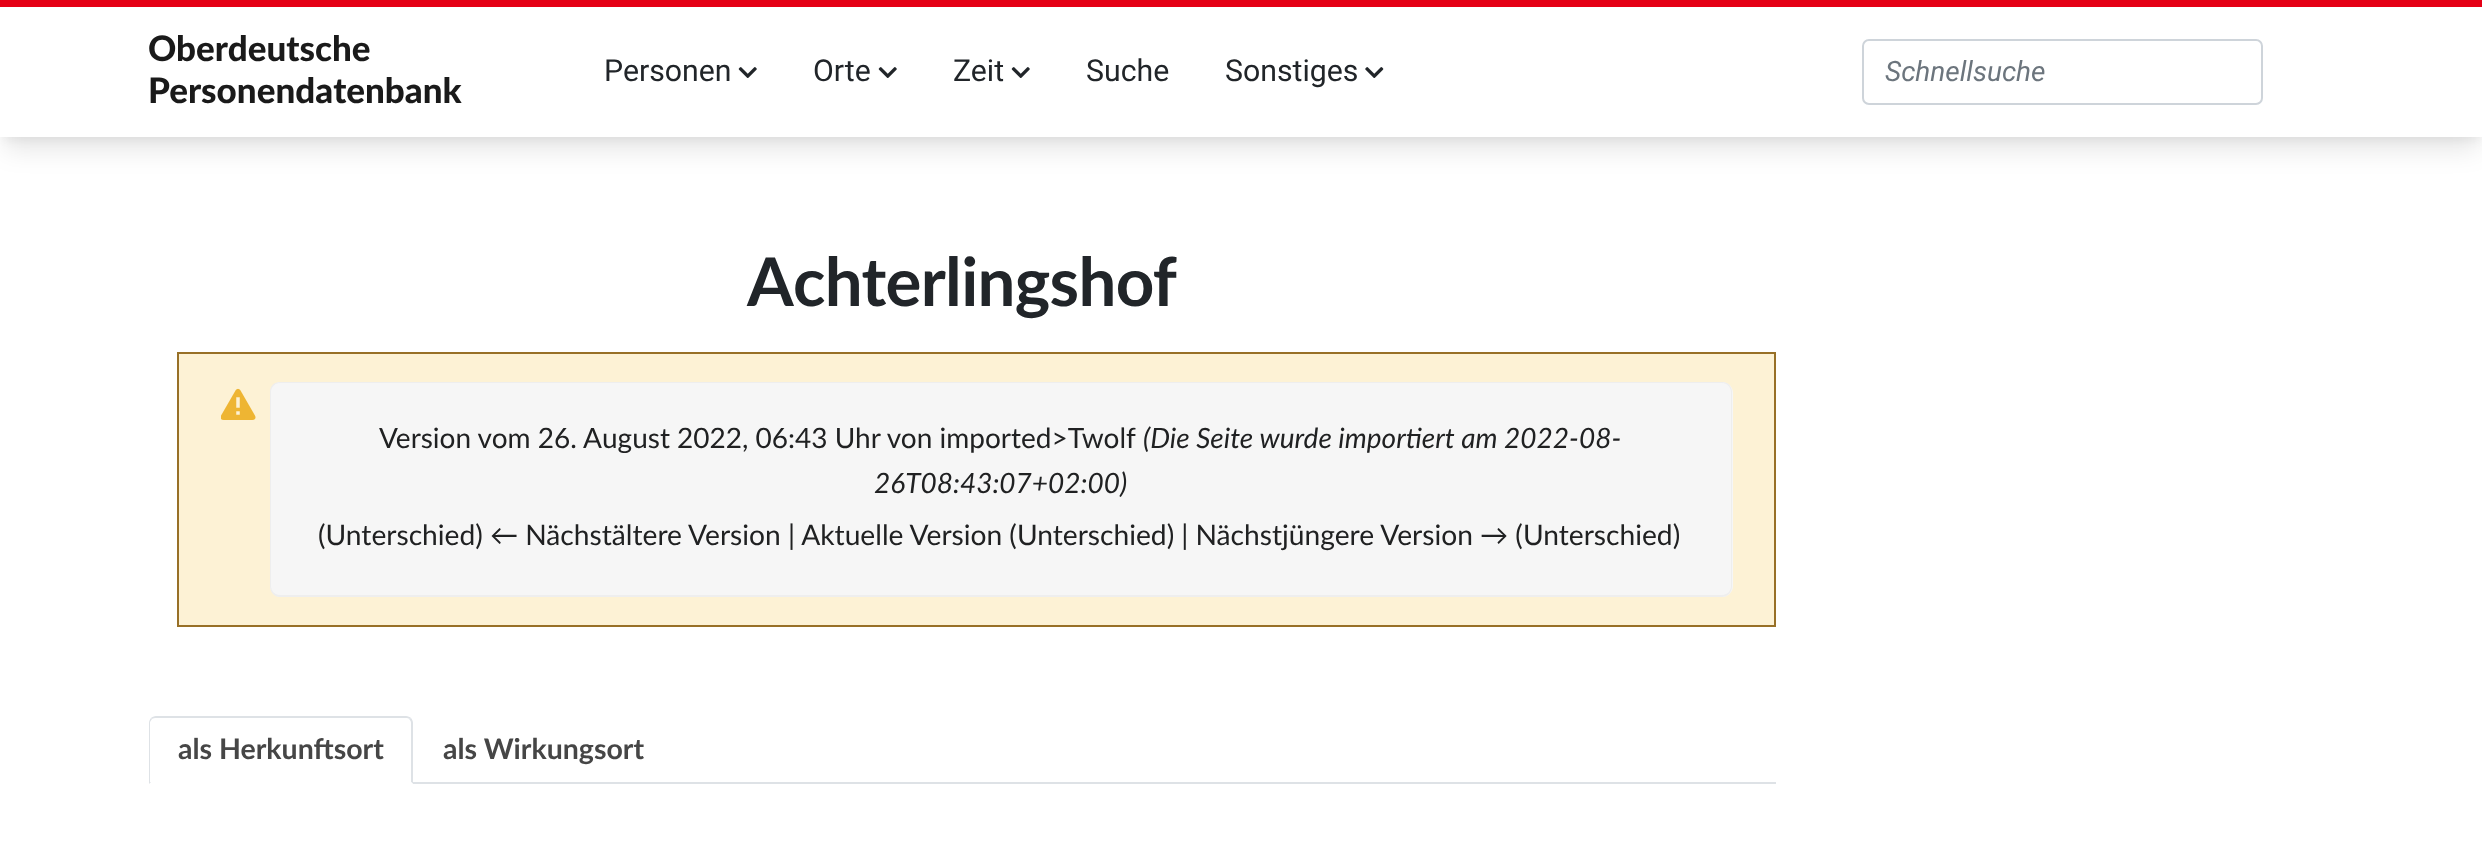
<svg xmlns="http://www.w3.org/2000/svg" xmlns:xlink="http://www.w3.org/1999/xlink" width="2482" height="846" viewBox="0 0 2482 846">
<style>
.cls-1{font:900 35px Lato;fill:#1a1a1a}
.cls-2{font:30.25px Roboto;fill:#212529}
.cls-3{font:italic 28px Roboto;fill:#6c757d}
.cls-4{font:bold 67.25px Lato;letter-spacing:-0.7px;fill:#212529}
.cls-5{font:28px Lato;fill:#202122}
.cls-6{font:italic 28px Lato;fill:#202122}
.cls-7{font:28.2px Lato;fill:#202122}
.cls-8{font:bold 28.5px Lato;fill:#464646}
</style>
<rect width="100%" height="100%" fill="#ffffff"/>
<rect fill="#000000" fill-opacity="0.05" filter="blur(5px)" x="4" y="11" width="2476" height="129"/>
<rect fill="#000000" fill-opacity="0.1" filter="blur(13px)" x="5" y="23" width="2473" height="126"/>
<rect fill="#ffffff" x="0" y="7" width="2482" height="130"/>
<rect fill="#e50015" x="0" y="0" width="2482" height="7"/>
<image xlink:href="image0.png" x="738" y="67" width="19" height="11"/>
<image xlink:href="image0.png" x="878" y="67" width="19" height="11"/>
<image xlink:href="image0.png" x="1011" y="67" width="19" height="11"/>
<image xlink:href="image1.png" x="1365" y="67" width="19" height="11"/>
<rect fill="none" stroke="#ced4da" stroke-width="2" x="1863" y="40" width="399" height="64" rx="6"/>
<rect fill="#fdf2d5" stroke="#987027" stroke-width="2" x="178" y="353" width="1597" height="273"/>
<image xlink:href="image2.png" x="221" y="388" width="35" height="32"/>
<path fill="#f6f6f6" d="M281 382H1722C1728 382 1733 387 1733 393V515H270V393C270 387 275 382 281 382Z"/>
<path fill="#eeeeee" fill-rule="evenodd" d="M280 382H1722C1728 382 1732 386 1732 392V514H270V392C270 386 274 382 280 382ZM280 383H1722C1727 383 1731 387 1731 392V514H271V392C271 387 275 383 280 383Z"/>
<path fill="#f6f6f6" d="M270 515H1733V586C1733 592 1728 597 1722 597H281C275 597 270 592 270 586Z"/>
<path fill="#eeeeee" fill-rule="evenodd" d="M270 514H1732V586C1732 592 1728 597 1722 597H280C274 597 270 592 270 586ZM271 514H1731V586C1731 591 1727 595 1722 595H280C275 595 271 591 271 586Z"/>
<rect fill="#dee2e6" x="413" y="782" width="1363" height="2"/>
<path fill="#dee2e6" d="M156 716C154 716 152 717 151 718L152 719C153 718 155 718 156 718H406C407 718 409 718 409 719L411 718C410 717 408 716 406 716Z"/>
<path fill="#dee2e6" d="M411 718C412 719 413 721 413 723V784L411 782V723C411 721 410 720 409 719Z"/>
<path fill="#ffffff" d="M413 784L411 782H151L149 784Z"/>
<path fill="#dee2e6" d="M151 718C150 719 149 721 149 723V784L151 782H150V722L152 719Z"/>
<text class="cls-1"><tspan x="148" y="61">Oberdeutsche</tspan><tspan x="148" y="103">Personendatenbank</tspan></text>
<text class="cls-2" x="604" y="81">Personen</text>
<text class="cls-2" x="813" y="81">Orte</text>
<text class="cls-2" x="953" y="81">Zeit</text>
<text class="cls-2" x="1086" y="81">Suche</text>
<text class="cls-2" x="1225" y="81">Sonstiges</text>
<text class="cls-3" x="1885" y="81">Schnellsuche</text>
<text class="cls-4" x="747" y="306">Achterlingshof</text>
<text class="cls-5" x="379" y="448">Version vom 26. August 2022, 06:43 Uhr von imported&gt;Twolf</text>
<text class="cls-6" x="1143" y="448">(Die Seite wurde importiert am 2022-08-</text>
<text class="cls-6" x="874" y="493">26T08:43:07+02:00)</text>
<text class="cls-7" x="318" y="545" word-spacing="-0.1">(Unterschied) ← Nächstältere Version | Aktuelle Version (Unterschied) | Nächstjüngere Version → (Unterschied)</text>
<text class="cls-8" x="178" y="759">als Herkunftsort</text>
<text class="cls-8" x="443" y="759">als Wirkungsort</text>
</svg>
